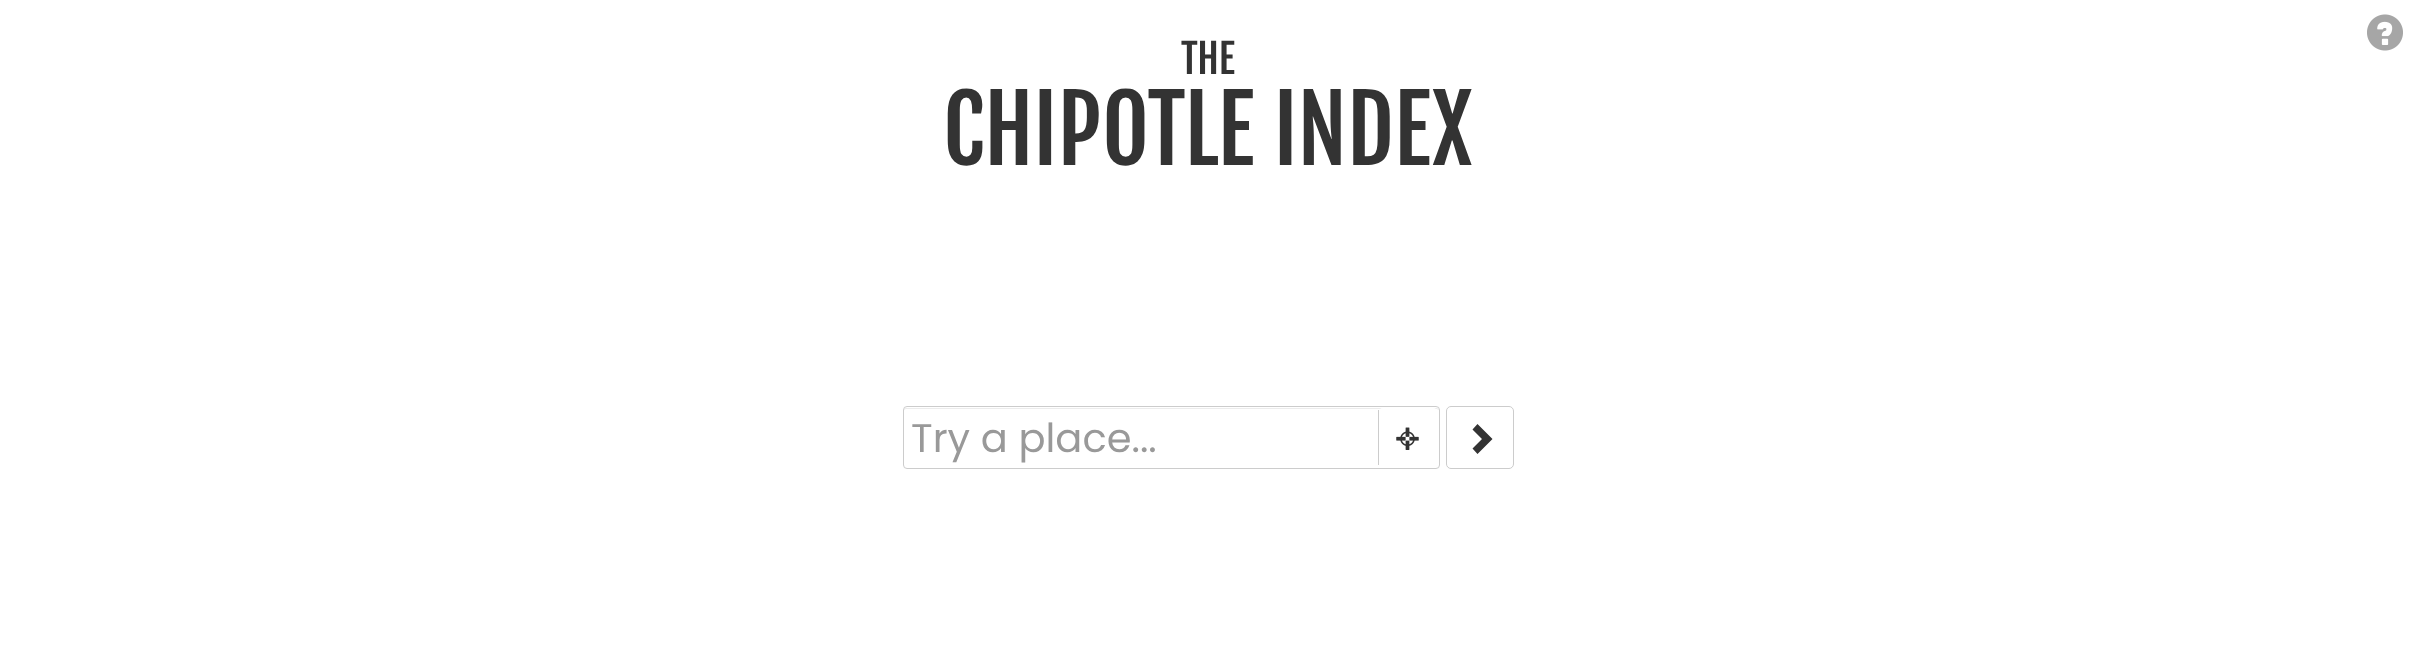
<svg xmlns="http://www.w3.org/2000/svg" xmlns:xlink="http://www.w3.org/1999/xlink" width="2416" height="649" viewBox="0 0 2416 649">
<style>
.cls-1{font:40px Fjalla One;fill:#333333}
.cls-2{font:91px Fjalla One;fill:#333333}
.cls-3{font:40px Poppins;fill:#999999}
</style>
<rect width="100%" height="100%" fill="#ffffff"/>
<image xlink:href="image0.png" x="2367" y="14" width="36" height="37"/>
<path fill="#ececec" d="M906 409H1436C1438 409 1439 410 1439 411C1439 409 1438 408 1436 408H906C905 408 904 409 904 411C904 410 905 409 906 409Z"/>
<rect fill="none" stroke="#cccccc" x="903.5" y="406.5" width="536" height="62" rx="3.5"/>
<rect fill="#ffffff" x="1378" y="408" width="60" height="60" rx="5"/>
<rect fill="#cccccc" x="1378" y="410" width="1" height="55"/>
<image xlink:href="image1.png" x="1396" y="427" width="23" height="23"/>
<rect fill="none" stroke="#cccccc" x="1446.5" y="406.5" width="67" height="62" rx="4.5"/>
<path fill="#333333" d="M1492.5 439L1477.5 454L1472.5 448.5L1482 439L1472.5 429.5L1477.5 424Z"/>
<text class="cls-1" x="1181" y="74">THE</text>
<text class="cls-2" x="943" y="165">CHIPOTLE INDEX</text>
<text class="cls-3" x="911" y="452">Try a place...</text>
</svg>
